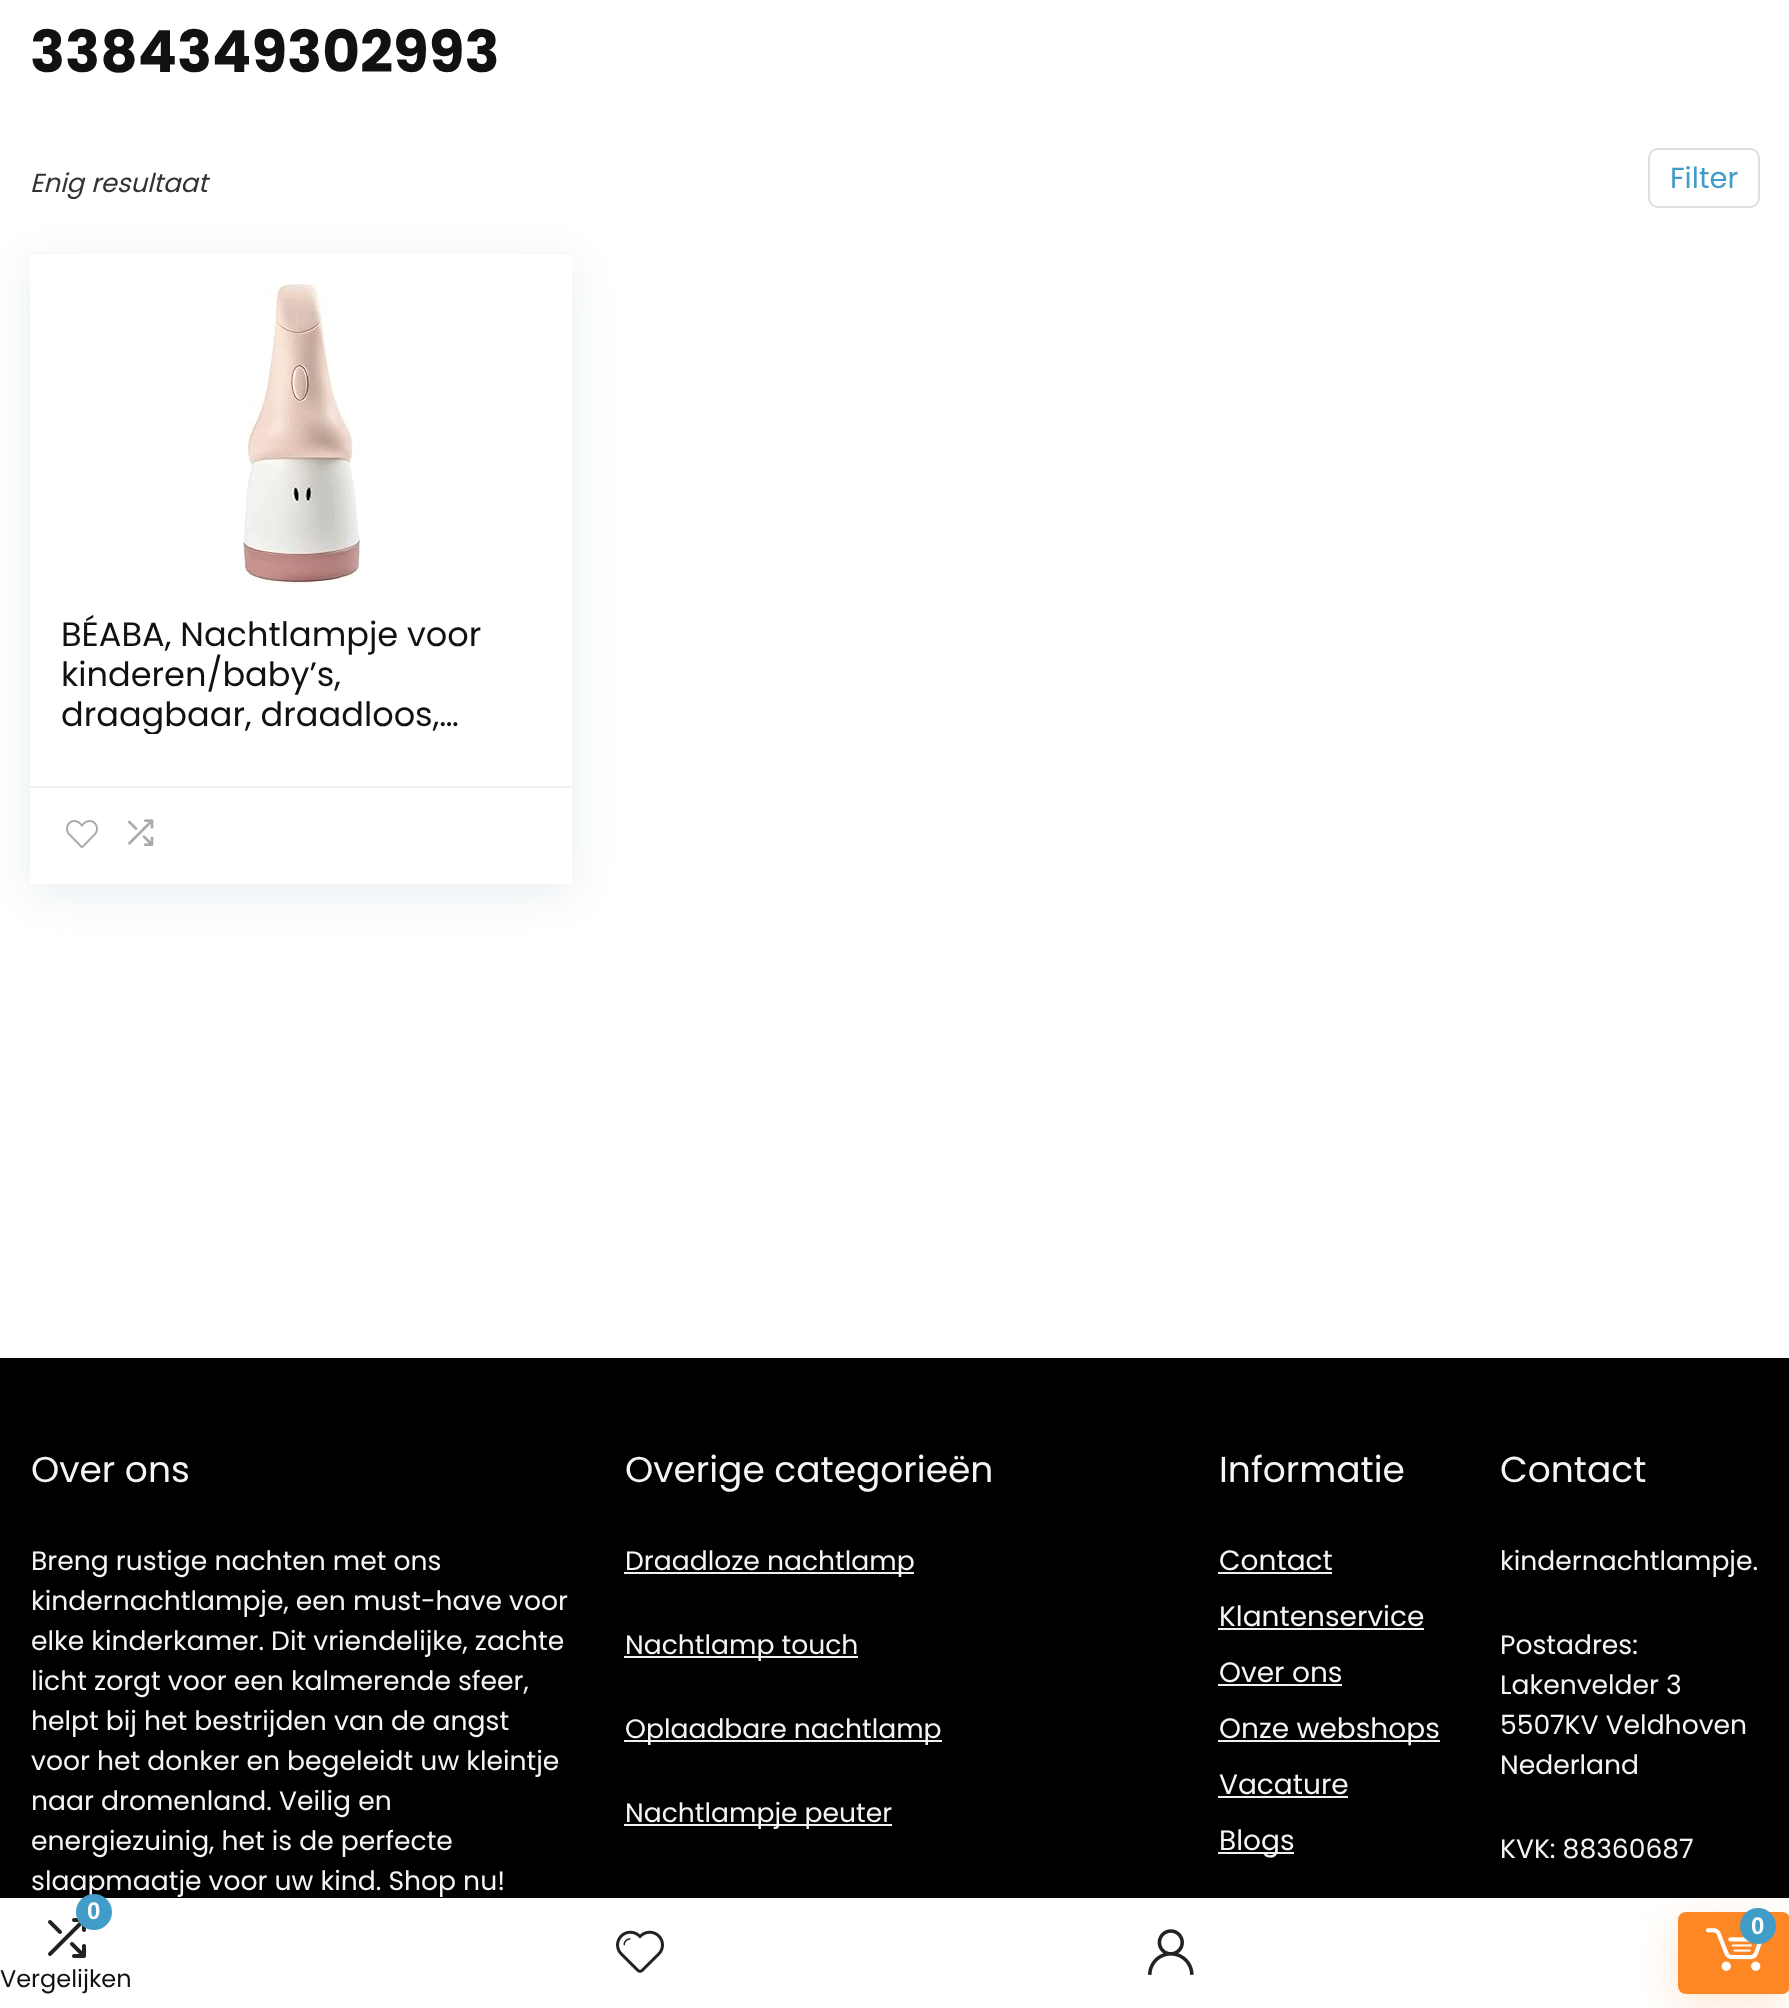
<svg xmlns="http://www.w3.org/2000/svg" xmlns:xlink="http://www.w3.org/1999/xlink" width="1789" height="2008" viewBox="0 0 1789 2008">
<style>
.cls-1{font:bold 58px Poppins;fill:#111111}
.cls-2{font:italic 26px Poppins;fill:#333333}
.cls-3{font:29px Poppins;fill:#429cc8}
.cls-4{font:33.6px Poppins;fill:#111111}
.cls-5{font:36px Poppins;fill:#f5f5f5}
.cls-6{font:26.6px Poppins;fill:#f5f5f5}
.cls-7{font:28px Poppins;fill:#f5f5f5}
.cls-8{font:bold 24px Liberation Sans;fill:#ffffff}
.cls-9{font:24px Poppins;fill:#111111}
</style>
<defs>
<clipPath id="clip1"><path d="M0 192H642V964H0ZM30 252H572V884H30Z" clip-rule="evenodd"/></clipPath>
<clipPath id="clip2"><rect x="60" y="614" width="452" height="120"/></clipPath>
</defs>
<rect width="100%" height="100%" fill="#ffffff"/>
<rect fill="none" stroke="#dce0e0" stroke-width="2" x="1649" y="149" width="110" height="58" rx="9"/>
<g clip-path="url(#clip1)">
<rect fill="#bccfdb" fill-opacity="0.35" filter="blur(23px)" x="30" y="262" width="542" height="632"/>
</g>
<rect fill="#f8f8f8" x="30" y="252" width="542" height="2"/>
<image xlink:href="image0.png" x="237" y="284" width="123" height="300"/>
<rect fill="#f0f0f0" x="30" y="786" width="542" height="2"/>
<image xlink:href="image1.png" x="66" y="820" width="32" height="28"/>
<image xlink:href="image2.png" x="128" y="819" width="26" height="27"/>
<rect fill="#000000" x="0" y="1358" width="1789" height="540"/>
<rect fill="#f1f1f1" x="624" y="1572" width="290" height="2"/>
<rect fill="#f1f1f1" x="624" y="1656" width="234" height="2"/>
<rect fill="#f1f1f1" x="624" y="1740" width="318" height="2"/>
<rect fill="#f1f1f1" x="624" y="1824" width="268" height="2"/>
<rect fill="#f1f1f1" x="1218" y="1572" width="114" height="2"/>
<rect fill="#f1f1f1" x="1218" y="1628" width="206" height="2"/>
<rect fill="#f1f1f1" x="1218" y="1684" width="124" height="2"/>
<rect fill="#f1f1f1" x="1218" y="1740" width="222" height="2"/>
<rect fill="#f1f1f1" x="1218" y="1796" width="130" height="2"/>
<rect fill="#f1f1f1" x="1218" y="1852" width="76" height="2"/>
<rect fill="#000000" fill-opacity="0.12" filter="blur(9px)" x="0" y="1898" width="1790" height="110"/>
<rect fill="#ffffff" x="0" y="1898" width="1789" height="110"/>
<image xlink:href="image3.png" x="48" y="1918" width="38" height="40"/>
<rect fill="#fd8725" fill-opacity="0.2" filter="blur(19px)" x="1676" y="1924" width="112" height="82" rx="8"/>
<rect fill="#fd8725" x="1678" y="1912" width="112" height="82" rx="8"/>
<image xlink:href="image4.png" x="1706" y="1928" width="56" height="43"/>
<circle fill="#429cc8" cx="1758" cy="1926" r="18"/>
<image xlink:href="image5.png" x="616" y="1930" width="48" height="43"/>
<image xlink:href="image6.png" x="1148" y="1929" width="46" height="46"/>
<text class="cls-1" x="30" y="72">3384349302993</text>
<text class="cls-2" x="30" y="192">Enig resultaat</text>
<text class="cls-3" x="1670" y="188">Filter</text>
<text class="cls-4"><tspan x="61" y="646">BÉABA, Nachtlampje voor</tspan><tspan x="61" y="686">kinderen/baby’s,</tspan></text>
<g clip-path="url(#clip2)">
<text class="cls-4" x="61" y="726">draagbaar, draadloos,…</text>
</g>
<text class="cls-5" x="31" y="1482">Over ons</text>
<text class="cls-6"><tspan x="31" y="1570">Breng rustige nachten met ons</tspan><tspan x="31" y="1610">kindernachtlampje, een must-have voor</tspan><tspan x="31" y="1650">elke kinderkamer. Dit vriendelijke, zachte</tspan><tspan x="31" y="1690">licht zorgt voor een kalmerende sfeer,</tspan><tspan x="31" y="1730">helpt bij het bestrijden van de angst</tspan><tspan x="31" y="1770">voor het donker en begeleidt uw kleintje</tspan><tspan x="31" y="1810">naar dromenland. Veilig en</tspan><tspan x="31" y="1850">energiezuinig, het is de perfecte</tspan><tspan x="31" y="1890">slaapmaatje voor uw kind. Shop nu!</tspan></text>
<text class="cls-5" x="625" y="1482">Overige categorieën</text>
<text class="cls-6" x="625" y="1570">Draadloze nachtlamp</text>
<text class="cls-6" x="625" y="1654">Nachtlamp touch</text>
<text class="cls-6" x="625" y="1738">Oplaadbare nachtlamp</text>
<text class="cls-6" x="625" y="1822">Nachtlampje peuter</text>
<text class="cls-5" x="1219" y="1482">Informatie</text>
<text class="cls-7" x="1219" y="1570">Contact</text>
<text class="cls-7" x="1219" y="1626">Klantenservice</text>
<text class="cls-7" x="1219" y="1682">Over ons</text>
<text class="cls-7" x="1219" y="1738">Onze webshops</text>
<text class="cls-7" x="1219" y="1794">Vacature</text>
<text class="cls-7" x="1219" y="1850">Blogs</text>
<text class="cls-5" x="1500" y="1482">Contact</text>
<text class="cls-6" x="1500" y="1570">kindernachtlampje.</text>
<text class="cls-6"><tspan x="1500" y="1654">Postadres:</tspan><tspan x="1500" y="1694">Lakenvelder 3</tspan><tspan x="1500" y="1734">5507KV Veldhoven</tspan><tspan x="1500" y="1774">Nederland</tspan></text>
<text class="cls-6" x="1500" y="1858">KVK: 88360687</text>
<circle fill="#429cc8" cx="94" cy="1912" r="18"/>
<text class="cls-8" x="87" y="1919">0</text>
<text class="cls-9" x="0" y="1987">Vergelijken</text>
<text class="cls-8" x="1751" y="1934">0</text>
</svg>
